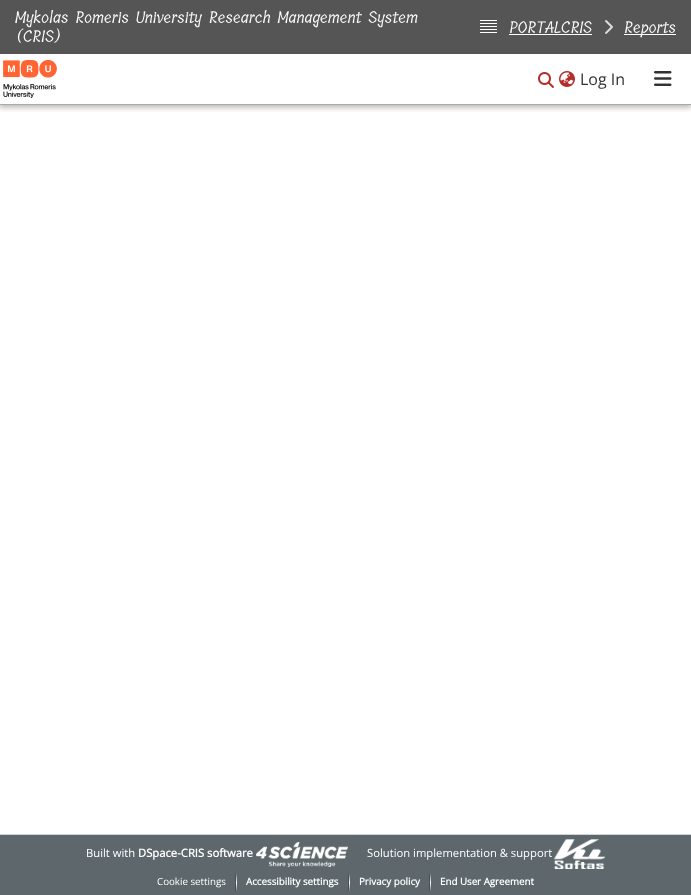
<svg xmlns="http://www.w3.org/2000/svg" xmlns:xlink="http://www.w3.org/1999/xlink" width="691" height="895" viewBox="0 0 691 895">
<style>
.cls-1{font:16px Tillana;fill:#ffffff}
.cls-2{font:16px Open Sans;fill:#333333}
.cls-3{font:11.25px Open Sans;fill:#ffffff}
.cls-4{font:bold 11.25px Open Sans;fill:#ffffff}
.cls-5{font:9.75px Open Sans;fill:#ffffff}
.cls-6{font:bold 9.75px Open Sans;fill:#ffffff}
</style>
<defs>
<clipPath id="clip1"><rect x="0" y="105" width="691" height="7"/></clipPath>
</defs>
<rect width="100%" height="100%" fill="#ffffff"/>
<g clip-path="url(#clip1)">
<rect fill="#685744" fill-opacity="0.5" filter="blur(3px)" x="-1" y="0" width="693" height="107"/>
</g>
<rect fill="#aaaaaa" x="0" y="104" width="691" height="1"/>
<rect fill="#555555" x="0" y="0" width="691" height="54"/>
<rect fill="#ffffff" x="480" y="20" width="17" height="1"/>
<rect fill="#ffffff" x="480" y="23" width="17" height="1"/>
<rect fill="#ffffff" x="480" y="26" width="17" height="1"/>
<rect fill="#ffffff" x="480" y="29" width="17" height="1"/>
<rect fill="#ffffff" x="480" y="32" width="17" height="1"/>
<rect fill="#ffffff" x="509" y="34" width="83" height="1"/>
<image xlink:href="image0.png" x="605" y="20" width="8" height="14"/>
<rect fill="#ffffff" x="624" y="34" width="52" height="1"/>
<image xlink:href="image1.png" x="3" y="59" width="54" height="40"/>
<image xlink:href="image2.png" x="538" y="72" width="16" height="16"/>
<image xlink:href="image3.png" x="559" y="71" width="16" height="16"/>
<image xlink:href="image4.png" x="654" y="71" width="18" height="15"/>
<rect fill="#5d676c" x="0" y="835" width="691" height="60"/>
<rect fill="#ced4da" x="0" y="834" width="691" height="1"/>
<image xlink:href="image5.png" x="256" y="842" width="92" height="25"/>
<image xlink:href="image6.png" x="554" y="839" width="51" height="30"/>
<image xlink:href="image7.png" x="236" y="874" width="1" height="17"/>
<rect fill="#495057" x="235" y="874" width="1" height="17"/>
<image xlink:href="image8.png" x="349" y="874" width="1" height="17"/>
<rect fill="#495057" x="348" y="874" width="1" height="17"/>
<image xlink:href="image7.png" x="430" y="874" width="1" height="17"/>
<rect fill="#495057" x="429" y="874" width="1" height="17"/>
<text class="cls-1"><tspan x="15" y="23">Mykolas Romeris University Research Management System</tspan><tspan x="15" y="42">(CRIS)</tspan></text>
<text class="cls-1" x="509" y="33">PORTALCRIS</text>
<text class="cls-1" x="624" y="33">Reports</text>
<text class="cls-2" x="580" y="85">Log In</text>
<text class="cls-3" x="86" y="857">Built with</text>
<text class="cls-4" x="138" y="857">DSpace-CRIS software</text>
<text class="cls-3" x="367" y="857">Solution implementation &amp; support</text>
<text class="cls-5" x="157" y="885">Cookie settings</text>
<text class="cls-6" x="246" y="885">Accessibility settings</text>
<text class="cls-6" x="359" y="885">Privacy policy</text>
<text class="cls-6" x="440" y="885">End User Agreement</text>
</svg>
